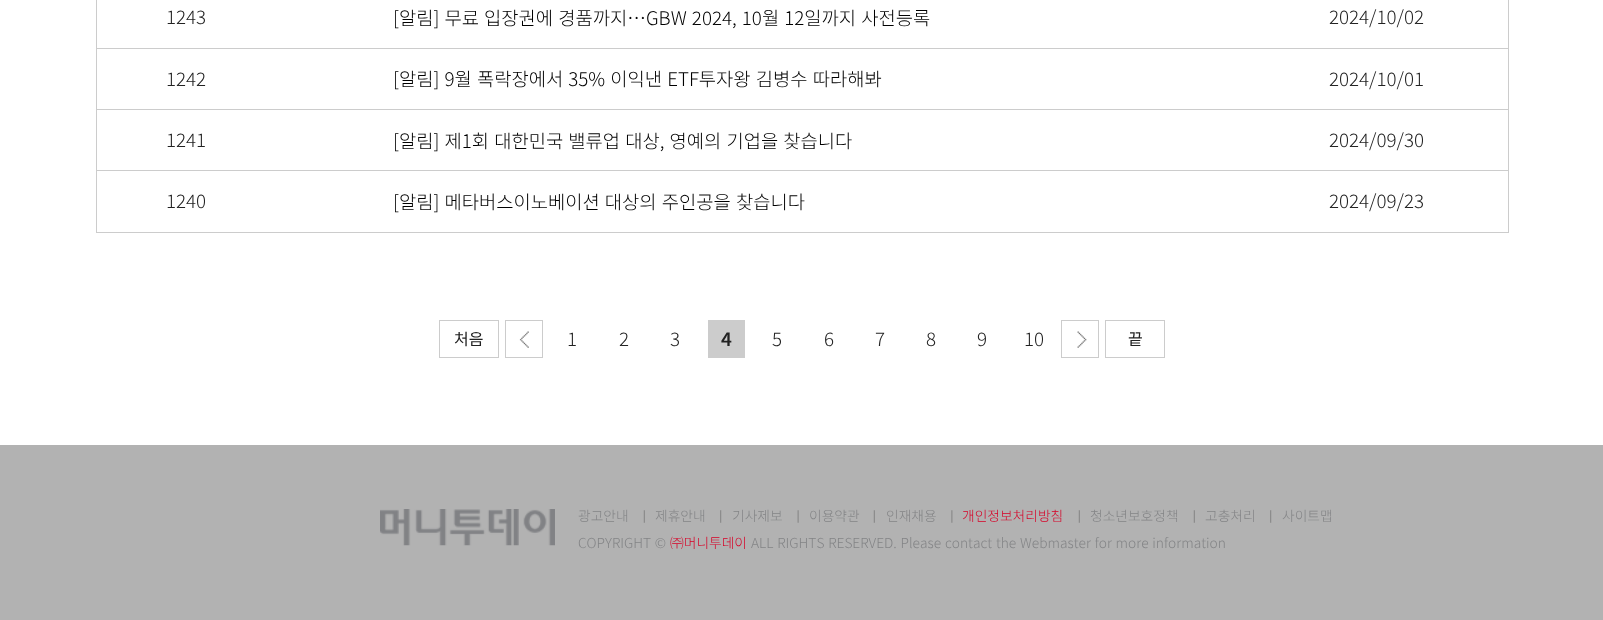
<svg xmlns="http://www.w3.org/2000/svg" xmlns:xlink="http://www.w3.org/1999/xlink" width="1603" height="620" viewBox="0 0 1603 620">
<style>*{font-kerning:none!important;font-variant-ligatures:none!important}</style>
<style>
.cls-1{font:300 18.75px Noto Sans KR;fill:#222222}
.cls-2{font:300 18.75px Noto Sans KR;fill:#000000}
.cls-3{font:16px Noto Sans KR;fill:#222222}
.cls-4{font:600 18.75px Noto Sans KR;fill:#222222}
.cls-5{font:300 13.75px Noto Sans KR;fill:#838486}
.cls-6{font:300 13.75px Noto Sans KR;fill:#d70026}
</style>
<rect width="100%" height="100%" fill="#ffffff"/>
<rect fill="none" stroke="#cccccc" x="96.5" y="-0.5" width="1412" height="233"/>
<rect fill="#cccccc" x="96" y="48" width="1412" height="1"/>
<rect fill="#cccccc" x="96" y="109" width="1412" height="1"/>
<rect fill="#cccccc" x="96" y="170" width="1412" height="1"/>
<rect fill="none" stroke="#cccccc" x="439.5" y="320.5" width="59" height="37"/>
<image xlink:href="image0.png" x="519" y="331" width="10" height="17"/>
<rect fill="none" stroke="#cccccc" x="505.5" y="320.5" width="37" height="37"/>
<rect fill="#cccccc" x="708" y="320" width="37" height="38"/>
<image xlink:href="image1.png" x="1077" y="331" width="10" height="17"/>
<rect fill="none" stroke="#cccccc" x="1061.5" y="320.5" width="37" height="37"/>
<rect fill="none" stroke="#cccccc" x="1105.5" y="320.5" width="59" height="37"/>
<rect fill="#b2b2b2" x="0" y="445" width="1603" height="175"/>
<image xlink:href="image2.png" x="380" y="509" width="175" height="37"/>
<image xlink:href="image3.png" x="643" y="510" width="2" height="13"/>
<image xlink:href="image4.png" x="720" y="510" width="2" height="13"/>
<image xlink:href="image5.png" x="797" y="510" width="2" height="13"/>
<image xlink:href="image3.png" x="873" y="510" width="2" height="13"/>
<image xlink:href="image6.png" x="951" y="510" width="2" height="13"/>
<image xlink:href="image3.png" x="1078" y="510" width="2" height="13"/>
<image xlink:href="image3.png" x="1193" y="510" width="2" height="13"/>
<image xlink:href="image4.png" x="1270" y="510" width="2" height="13"/>
<text class="cls-1" x="166" y="24">1243</text>
<text class="cls-2" x="393" y="25" word-spacing="1">[알림] 무료 입장권에 경품까지…GBW 2024, 10월 12일까지 사전등록</text>
<text class="cls-1" x="1329" y="24">2024/10/02</text>
<text class="cls-1" x="166" y="86">1242</text>
<text class="cls-2" x="393" y="86" word-spacing="1">[알림] 9월 폭락장에서 35% 이익낸 ETF투자왕 김병수 따라해봐</text>
<text class="cls-1" x="1329" y="86">2024/10/01</text>
<text class="cls-1" x="166" y="147">1241</text>
<text class="cls-2" x="393" y="148" word-spacing="1">[알림] 제1회 대한민국 밸류업 대상, 영예의 기업을 찾습니다</text>
<text class="cls-1" x="1329" y="147">2024/09/30</text>
<text class="cls-1" x="166" y="208">1240</text>
<text class="cls-2" x="393" y="209" word-spacing="1">[알림] 메타버스이노베이션 대상의 주인공을 찾습니다</text>
<text class="cls-1" x="1329" y="208">2024/09/23</text>
<text class="cls-3" x="454" y="345">처음</text>
<text class="cls-1" x="567" y="346">1</text>
<text class="cls-1" x="619" y="346">2</text>
<text class="cls-1" x="670" y="346">3</text>
<text class="cls-4" x="721" y="346">4</text>
<text class="cls-1" x="772" y="346">5</text>
<text class="cls-1" x="824" y="346">6</text>
<text class="cls-1" x="875" y="346">7</text>
<text class="cls-1" x="926" y="346">8</text>
<text class="cls-1" x="977" y="346">9</text>
<text class="cls-1" x="1024" y="346">10</text>
<text class="cls-3" x="1128" y="345">끝</text>
<text class="cls-5" x="578" y="521">광고안내</text>
<text class="cls-5" x="655" y="521">제휴안내</text>
<text class="cls-5" x="732" y="521">기사제보</text>
<text class="cls-5" x="809" y="521">이용약관</text>
<text class="cls-5" x="886" y="521">인재채용</text>
<text class="cls-6" x="962" y="521">개인정보처리방침</text>
<text class="cls-5" x="1090" y="521">청소년보호정책</text>
<text class="cls-5" x="1205" y="521">고충처리</text>
<text class="cls-5" x="1282" y="521">사이트맵</text>
<text class="cls-5" x="578" y="548" word-spacing="0.75">COPYRIGHT ©</text>
<text class="cls-6" x="670" y="548">㈜머니투데이</text>
<text class="cls-5" x="751" y="548" word-spacing="0.75">ALL RIGHTS RESERVED. Please contact the Webmaster for more information</text>
</svg>
